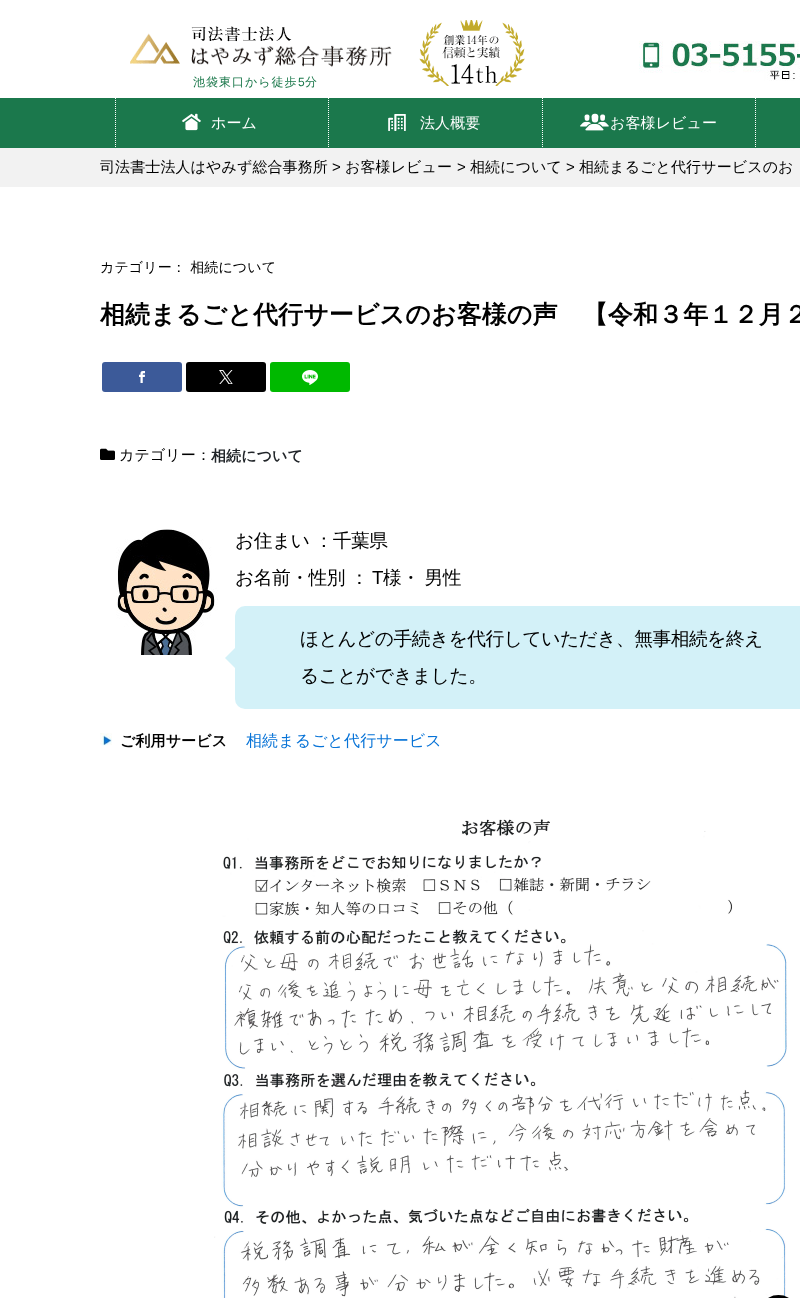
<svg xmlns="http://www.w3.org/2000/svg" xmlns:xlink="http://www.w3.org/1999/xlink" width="800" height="1298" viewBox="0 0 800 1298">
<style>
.cls-1{font:500 12px WenQuanYi Zen Hei;letter-spacing:1px;fill:#1b784b}
.cls-2{font:12px Liberation Sans;letter-spacing:1px;fill:#1b784b}
.cls-3{font:500 15px WenQuanYi Zen Hei;letter-spacing:0.1px;fill:#ffffff}
.cls-4{font:500 15px WenQuanYi Zen Hei;letter-spacing:0.1px;fill:#000000}
.cls-5{font:15px Liberation Sans;letter-spacing:0.1px;fill:#000000}
.cls-6{font:500 14px WenQuanYi Zen Hei;letter-spacing:0.1px;fill:#000000}
.cls-7{font:bold 25px WenQuanYi Zen Hei;letter-spacing:0.1px;fill:#000000}
.cls-8{font:bold 15px WenQuanYi Zen Hei;letter-spacing:0.1px;fill:#212529}
.cls-9{font:500 18.75px WenQuanYi Zen Hei;letter-spacing:-0.5px;fill:#000000}
.cls-10{font:18.75px Liberation Sans;letter-spacing:-0.5px;fill:#000000}
.cls-11{font:bold 15px WenQuanYi Zen Hei;letter-spacing:0.1px;fill:#000000}
.cls-12{font:500 16px WenQuanYi Zen Hei;letter-spacing:0.1px;fill:#0773d7}
</style>
<rect width="100%" height="100%" fill="#ffffff"/>
<image xlink:href="image0.png" x="130" y="26" width="262" height="41"/>
<image xlink:href="image1.png" x="419" y="20" width="106" height="66"/>
<image xlink:href="image2.png" x="639" y="41" width="161" height="40"/>
<rect fill="#1b784c" x="0" y="98" width="800" height="50"/>
<path fill="none" stroke="#ffffff" stroke-dasharray="1 1" d="M115.5 98V148"/>
<image xlink:href="image3.png" x="182" y="113" width="19" height="18"/>
<path fill="none" stroke="#ffffff" stroke-dasharray="1 1" d="M328.5 98V148"/>
<image xlink:href="image4.png" x="388" y="114" width="18" height="17"/>
<path fill="none" stroke="#ffffff" stroke-dasharray="1 1" d="M542.5 98V148"/>
<image xlink:href="image5.png" x="580" y="113" width="29" height="18"/>
<path fill="none" stroke="#ffffff" stroke-dasharray="1 1" d="M755.5 98V148"/>
<rect fill="#f2f2f2" x="0" y="148" width="800" height="39"/>
<rect fill="#3c5a99" x="102" y="362" width="80" height="30" rx="3"/>
<image xlink:href="image6.png" x="139" y="371" width="6" height="12"/>
<rect fill="#000000" x="186" y="362" width="80" height="30" rx="3"/>
<image xlink:href="image7.png" x="219" y="370" width="14" height="14"/>
<rect fill="#00b900" x="270" y="362" width="80" height="30" rx="3"/>
<image xlink:href="image8.png" x="302" y="370" width="16" height="15"/>
<image xlink:href="image9.png" x="100" y="448" width="15" height="12"/>
<image xlink:href="image10.png" x="116" y="529" width="102" height="126"/>
<rect fill="#d3f1f8" x="235" y="606" width="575" height="103" rx="10"/>
<path fill="#d3f1f8" d="M235 648V668L225 658Z"/>
<image xlink:href="image11.png" x="100" y="733" width="12" height="13"/>
<image xlink:href="image12.png" x="214" y="819" width="573" height="479"/>
<rect fill="#000000" x="765" y="1295" width="27" height="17" rx="13.5"/>
<text class="cls-1" x="193" y="86">池袋東口から徒歩</text>
<text class="cls-2" x="298" y="86">5</text>
<text class="cls-1" x="305" y="86">分</text>
<text class="cls-3" x="211" y="128">ホーム</text>
<text class="cls-3" x="420" y="128">法人概要</text>
<text class="cls-3" x="610" y="128">お客様レビュー</text>
<text class="cls-4" x="100" y="172">司法書士法人はやみず総合事務所</text>
<text class="cls-5" x="332" y="172">&gt;</text>
<text class="cls-4" x="345" y="172">お客様レビュー</text>
<text class="cls-5" x="457" y="172">&gt;</text>
<text class="cls-4" x="470" y="172">相続について</text>
<text class="cls-5" x="566" y="172">&gt;</text>
<text class="cls-4" x="579" y="172">相続まるごと代行サービスのお</text>
<text class="cls-6" x="100" y="272">カテゴリー： 相続について</text>
<text class="cls-7" x="100" y="323">相続まるごと代行サービスのお客様の声　【令和３年１２月２</text>
<text class="cls-4" x="119" y="460">カテゴリー：</text>
<text class="cls-8" x="211" y="461">相続について</text>
<text class="cls-9"><tspan x="235" y="547">お住まい ：千葉県</tspan><tspan x="235" y="584">お名前・性別 ：</tspan></text>
<text class="cls-10" x="372" y="584">T</text>
<text class="cls-9" x="383" y="584">様・ 男性</text>
<text class="cls-9"><tspan x="300" y="645">ほとんどの手続きを代行していただき、無事相続を終え</tspan><tspan x="300" y="682">ることができました。</tspan></text>
<text class="cls-11" x="120" y="746">ご利用サービス</text>
<text class="cls-12" x="246" y="746">相続まるごと代行サービス</text>
</svg>
